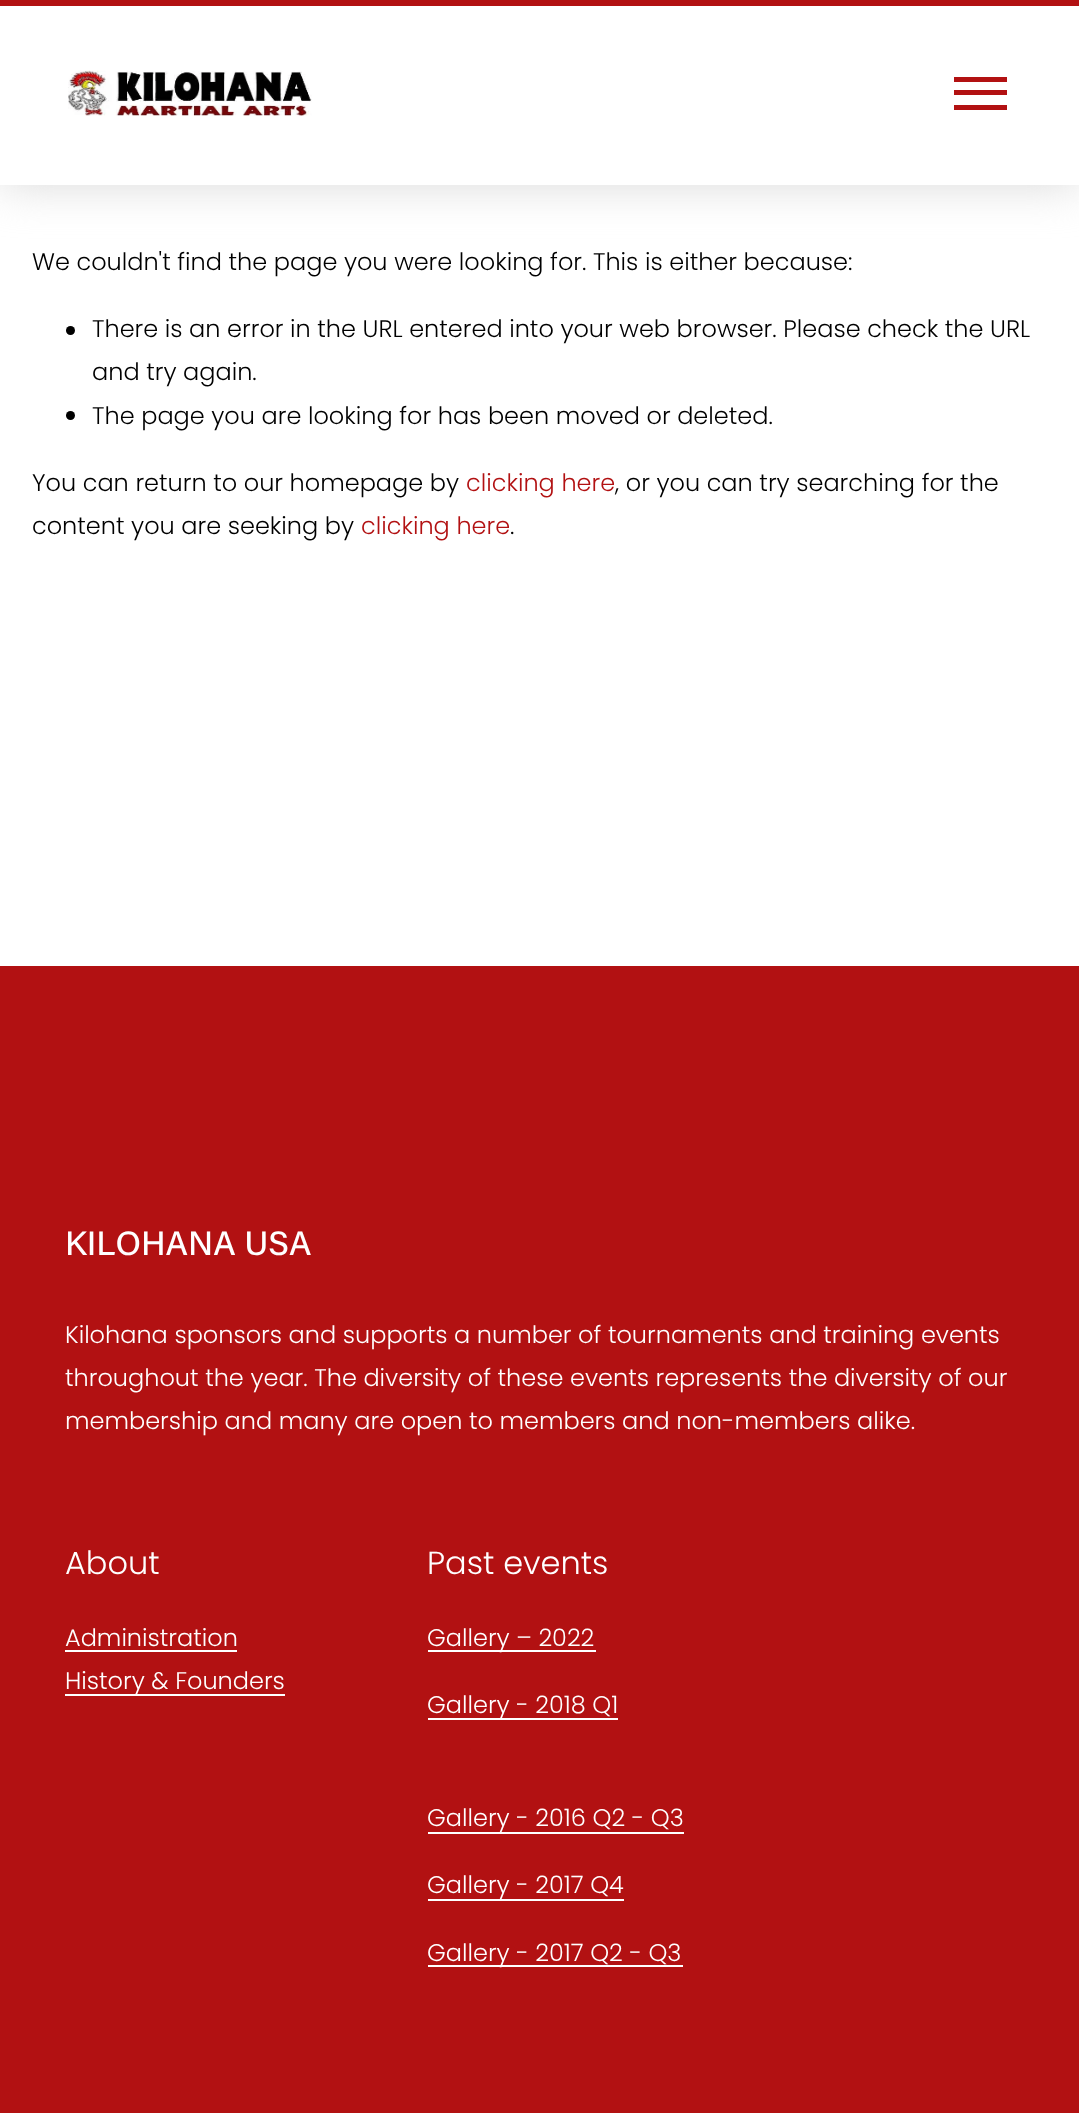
<svg xmlns="http://www.w3.org/2000/svg" xmlns:xlink="http://www.w3.org/1999/xlink" width="1079" height="2113" viewBox="0 0 1079 2113">
<style>*{font-kerning:none!important;font-variant-ligatures:none!important}</style>
<style>
.cls-1{font:300 24px Poppins;fill:#000000}
.cls-2{font:300 24px Poppins;fill:#b21112}
.cls-3{font:500 33.75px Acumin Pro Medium;fill:#ffffff}
.cls-4{font:300 24px Poppins;fill:#ffffff}
.cls-5{font:300 32px Poppins;fill:#ffffff}
</style>
<rect width="100%" height="100%" fill="#ffffff"/>
<rect fill="#d9d9d9" filter="blur(22.5px)" x="0" y="0" width="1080" height="185"/>
<rect fill="#b21112" x="0" y="0" width="1079" height="6"/>
<rect fill="#ffffff" x="0" y="6" width="1079" height="179"/>
<image xlink:href="image0.png" x="68" y="70" width="244" height="46"/>
<rect fill="#b21112" x="954" y="77" width="53" height="5"/>
<rect fill="#b21112" x="954" y="90" width="53" height="5"/>
<rect fill="#b21112" x="954" y="105" width="53" height="5"/>
<circle fill="#000000" cx="70.5" cy="330.5" r="4.5"/>
<circle fill="#000000" cx="70.5" cy="415.5" r="4.5"/>
<rect fill="#b21112" x="0" y="966" width="1079" height="1147"/>
<rect fill="#ffffff" x="65" y="1650" width="172" height="2"/>
<rect fill="#ffffff" x="65" y="1694" width="220" height="2"/>
<rect fill="#ffffff" x="428" y="1650" width="168" height="2"/>
<rect fill="#ffffff" x="428" y="1718" width="190" height="2"/>
<rect fill="#ffffff" x="428" y="1832" width="256" height="2"/>
<rect fill="#ffffff" x="428" y="1899" width="196" height="2"/>
<rect fill="#ffffff" x="428" y="1965" width="255" height="2"/>
<text class="cls-1" x="32" y="270">We couldn't find the page you were looking for. This is either because:</text>
<text class="cls-1"><tspan x="92" y="337">There is an error in the URL entered into your web browser. Please check the URL</tspan><tspan x="92" y="380">and try again.</tspan><tspan x="92" y="424">The page you are looking for has been moved or deleted.</tspan></text>
<text class="cls-1" x="32" y="491">You can return to our homepage by</text>
<text class="cls-2" x="466" y="491">clicking here</text>
<text class="cls-1" x="615" y="491">, or you can try searching for the</text>
<text class="cls-1" x="32" y="534">content you are seeking by</text>
<text class="cls-2" x="361" y="534">clicking here</text>
<text class="cls-1" x="510" y="534">.</text>
<text class="cls-3" x="65" y="1255">KILOHANA USA</text>
<text class="cls-4"><tspan x="65" y="1343">Kilohana sponsors and supports a number of tournaments and training events</tspan><tspan x="65" y="1386">throughout the year. The diversity of these events represents the diversity of our</tspan><tspan x="65" y="1429">membership and many are open to members and non-members alike.</tspan></text>
<text class="cls-5" x="65" y="1574">About</text>
<text class="cls-4"><tspan x="65" y="1646">Administration</tspan><tspan x="65" y="1689">History &amp; Founders</tspan></text>
<text class="cls-5" x="427" y="1574">Past events</text>
<text class="cls-4" x="427" y="1646">Gallery – 2022</text>
<text class="cls-4" x="427" y="1713">Gallery - 2018 Q1</text>
<text class="cls-4" x="427" y="1826">Gallery - 2016 Q2 - Q3</text>
<text class="cls-4" x="427" y="1893">Gallery - 2017 Q4</text>
<text class="cls-4" x="427" y="1961">Gallery - 2017 Q2 - Q3</text>
</svg>
